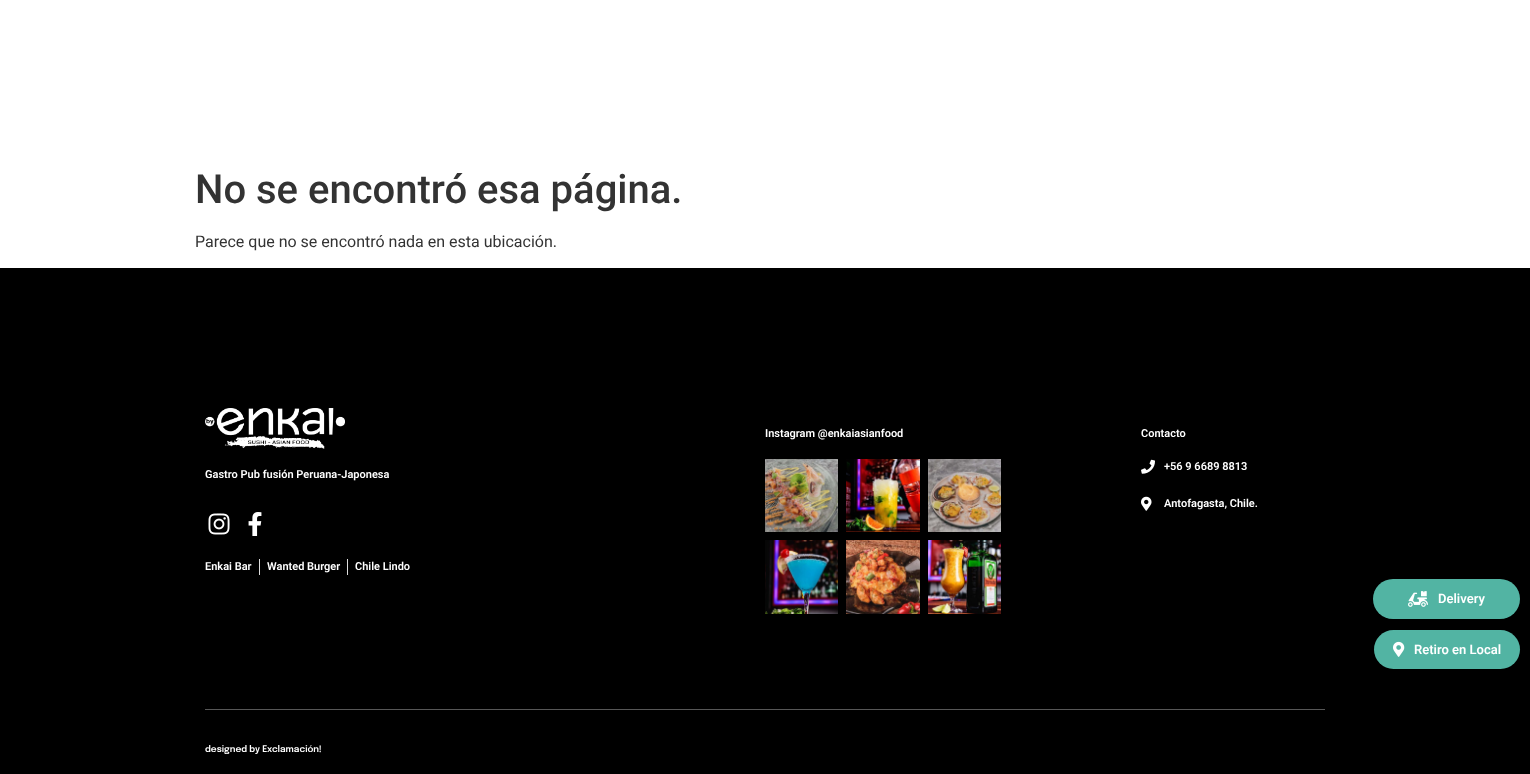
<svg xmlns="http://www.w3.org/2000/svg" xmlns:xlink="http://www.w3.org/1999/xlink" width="1530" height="774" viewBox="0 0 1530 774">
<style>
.cls-1{font:500 40px Roboto;fill:#333333}
.cls-2{font:16px Roboto;fill:#333333}
.cls-3{font:600 11px Roboto;fill:#ffffff}
.cls-4{font:600 9px Epilogue;fill:#ffffff}
.cls-5{font:600 13px Roboto;fill:#ffffff}
</style>
<rect width="100%" height="100%" fill="#ffffff"/>
<rect fill="#000000" x="0" y="268" width="1530" height="506"/>
<image xlink:href="image0.png" x="205" y="408" width="140" height="41"/>
<image xlink:href="image1.png" x="208" y="513" width="22" height="22"/>
<image xlink:href="image2.png" x="248" y="512" width="14" height="24"/>
<rect fill="#dddddd" x="259" y="559" width="1" height="16"/>
<rect fill="#dddddd" x="347" y="559" width="1" height="16"/>
<image xlink:href="image3.png" x="765" y="459" width="73" height="73"/>
<image xlink:href="image4.png" x="846" y="459" width="74" height="73"/>
<image xlink:href="image5.png" x="928" y="459" width="73" height="73"/>
<image xlink:href="image6.png" x="765" y="540" width="73" height="74"/>
<image xlink:href="image7.png" x="846" y="540" width="74" height="74"/>
<image xlink:href="image8.png" x="928" y="540" width="73" height="74"/>
<image xlink:href="image9.png" x="1141" y="459" width="14" height="15"/>
<image xlink:href="image10.png" x="1141" y="496" width="11" height="15"/>
<rect fill="#575757" x="205" y="709" width="1120" height="1"/>
<rect fill="#52b4a3" x="1373" y="579" width="147" height="40" rx="20"/>
<image xlink:href="image11.png" x="1408" y="591" width="20" height="16"/>
<rect fill="#52b4a3" x="1374" y="630" width="146" height="39" rx="19.5"/>
<image xlink:href="image12.png" x="1393" y="641" width="12" height="16"/>
<text class="cls-1" x="195" y="203">No se encontró esa página.</text>
<text class="cls-2" x="195" y="247">Parece que no se encontró nada en esta ubicación.</text>
<text class="cls-3" x="205" y="478">Gastro Pub fusión Peruana-Japonesa</text>
<text class="cls-3" x="205" y="570">Enkai Bar</text>
<text class="cls-3" x="267" y="570">Wanted Burger</text>
<text class="cls-3" x="355" y="570">Chile Lindo</text>
<text class="cls-3" x="765" y="437">Instagram @enkaiasianfood</text>
<text class="cls-3" x="1141" y="437">Contacto</text>
<text class="cls-3" x="1164" y="470">+56 9 6689 8813</text>
<text class="cls-3" x="1164" y="507">Antofagasta, Chile.</text>
<text class="cls-4" x="205" y="752">designed by Exclamación!</text>
<text class="cls-5" x="1438" y="603">Delivery</text>
<text class="cls-5" x="1414" y="654">Retiro en Local</text>
</svg>
